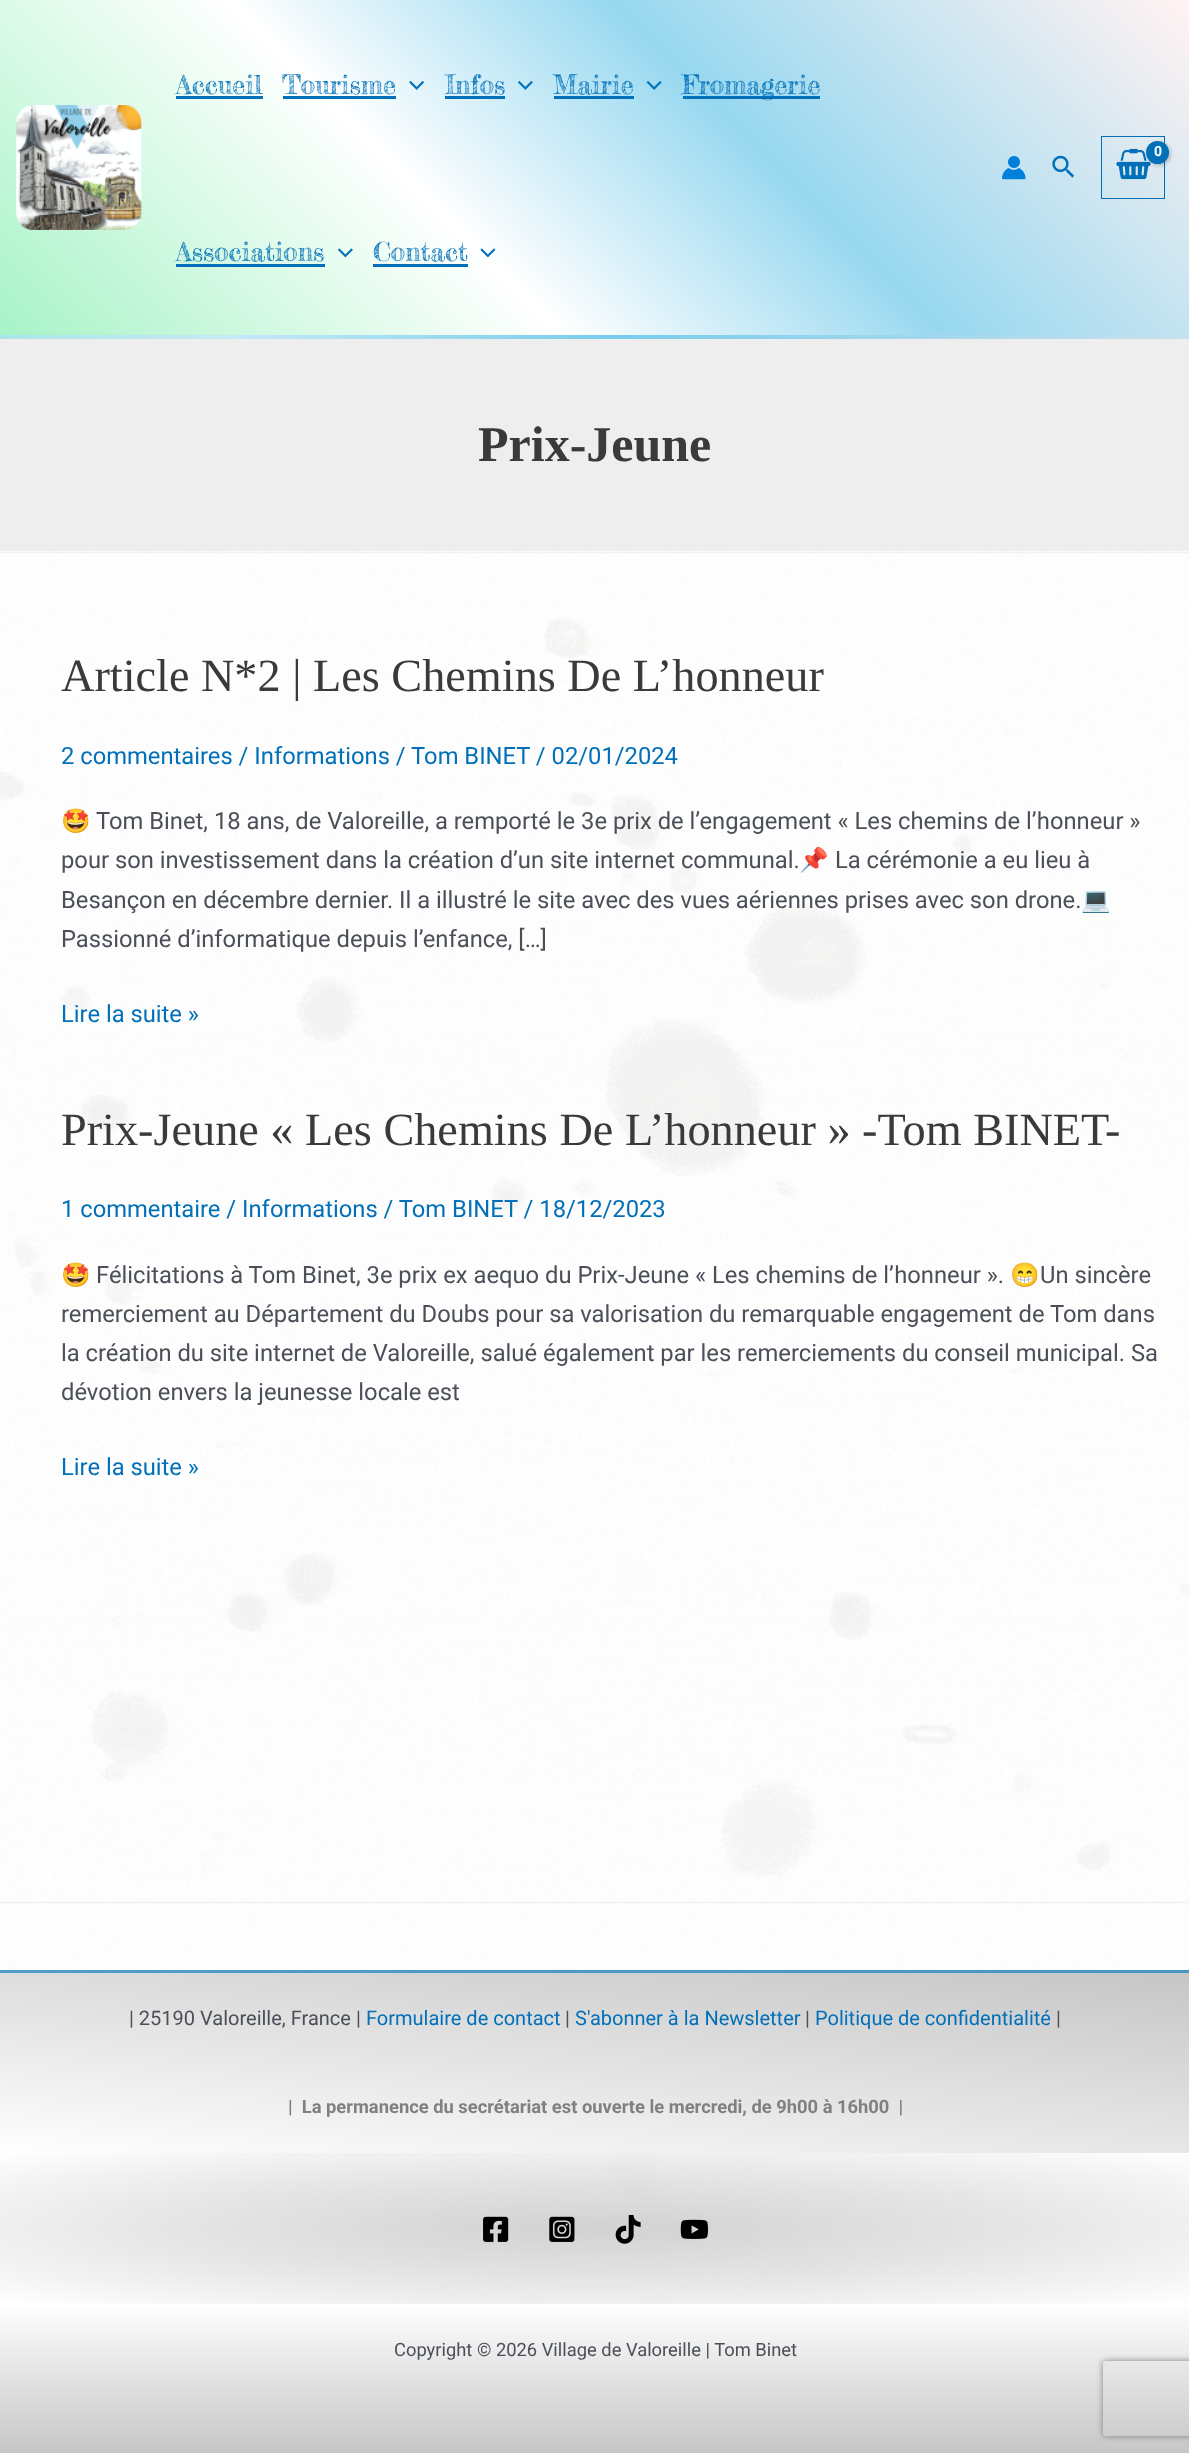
<svg xmlns="http://www.w3.org/2000/svg" xmlns:xlink="http://www.w3.org/1999/xlink" width="1189" height="2453" viewBox="0 0 1189 2453">
<style>
.cls-1{font:26.25px Fredericka the Great;fill:#0170b9}
.cls-2{font:bold 14px Roboto;letter-spacing:-1px;fill:#ffffff}
.cls-3{font:bold 50px Liberation Serif;fill:#3a3a3a}
.cls-4{font:46.25px Liberation Serif;fill:#3a3a3a}
.cls-5{font:23.75px Roboto;fill:#0170b9}
.cls-6{font:23.75px Noto Color Emoji;fill:#4b4f58}
.cls-7{font:23.75px Roboto;fill:#4b4f58}
.cls-8{font:20px Roboto;fill:#4b4f58}
.cls-9{font:20px Roboto;fill:#0170b9}
.cls-10{font:bold 18.35px Roboto;fill:#808080}
.cls-11{font:18.35px Roboto;fill:#4b4f58}
</style>
<defs>
<linearGradient id="g1" gradientUnits="userSpaceOnUse" x1="214" y1="549" x2="976" y2="-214"><stop offset="0" stop-color="#a7f3c7"/><stop offset="0.37" stop-color="#ffffff"/><stop offset="0.62" stop-color="#97d8f0"/><stop offset="0.99" stop-color="#fff2f2"/></linearGradient>
<linearGradient id="g2" gradientUnits="userSpaceOnUse" x1="214" y1="884" x2="976" y2="121"><stop offset="0" stop-color="#a6f2c6"/><stop offset="0.37" stop-color="#ffffff"/><stop offset="0.62" stop-color="#96d8f0"/><stop offset="0.99" stop-color="#fff2f2"/></linearGradient>
<linearGradient id="g3" gradientUnits="userSpaceOnUse" x1="611" y1="1732" x2="579" y2="2033"><stop offset="0" stop-color="#c6c6c6"/><stop offset="1" stop-color="#fefefe"/></linearGradient>
<linearGradient id="g4" gradientUnits="userSpaceOnUse" x1="611" y1="1912" x2="579" y2="2213"><stop offset="0" stop-color="#c6c6c6"/><stop offset="1" stop-color="#fefefe"/></linearGradient>
<linearGradient id="g5" gradientUnits="userSpaceOnUse" x1="595" y1="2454" x2="595" y2="2304"><stop offset="0" stop-color="#c6c6c6"/><stop offset="1" stop-color="#fefefe"/></linearGradient>
<clipPath id="clip1"><path d="M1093 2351H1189V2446H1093ZM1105.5 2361H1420.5C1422 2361 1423 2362 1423 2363.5V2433.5C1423 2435 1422 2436 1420.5 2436H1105.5C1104 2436 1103 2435 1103 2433.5V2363.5C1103 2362 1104 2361 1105.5 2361Z" clip-rule="evenodd"/></clipPath>
</defs>
<rect width="100%" height="100%" fill="#ffffff"/>
<image xlink:href="image0.png" x="0" y="551" width="1189" height="1753"/>
<rect fill="url(#g1)" x="0" y="0" width="1189" height="335"/>
<rect fill="url(#g2)" x="0" y="335" width="1189" height="4"/>
<rect fill="#1baade" fill-opacity="0.25" x="0" y="335" width="1189" height="4"/>
<image xlink:href="image1.png" x="16" y="105" width="126" height="125"/>
<rect fill="#0170b9" x="176" y="96" width="87" height="3"/>
<rect fill="#0170b9" x="283" y="96" width="113" height="3"/>
<image xlink:href="image2.png" x="409" y="80" width="16" height="10"/>
<rect fill="#0170b9" x="445" y="96" width="60" height="3"/>
<image xlink:href="image3.png" x="518" y="80" width="15" height="10"/>
<rect fill="#0170b9" x="554" y="96" width="80" height="3"/>
<image xlink:href="image4.png" x="646" y="80" width="16" height="10"/>
<rect fill="#0170b9" x="683" y="96" width="137" height="3"/>
<rect fill="#0170b9" x="176" y="264" width="149" height="3"/>
<image xlink:href="image5.png" x="338" y="248" width="15" height="10"/>
<rect fill="#0170b9" x="373" y="264" width="95" height="3"/>
<image xlink:href="image6.png" x="480" y="248" width="16" height="10"/>
<rect fill="none" stroke="#0170b9" x="1101.5" y="136.5" width="63" height="62"/>
<image xlink:href="image7.png" x="1116" y="148" width="35" height="32"/>
<rect fill="#000000" fill-opacity="0.3" filter="blur(2px)" x="1148" y="143" width="22" height="22" rx="11"/>
<circle fill="#0170b9" cx="1157.5" cy="152.5" r="11.5"/>
<image xlink:href="image8.png" x="1002" y="156" width="24" height="24"/>
<image xlink:href="image9.png" x="1052" y="155" width="22" height="23"/>
<rect fill="#eeeeee" x="0" y="339" width="1189" height="212"/>
<rect fill="url(#g3)" x="0" y="1970" width="1189" height="3"/>
<rect fill="url(#g4)" x="0" y="1973" width="1189" height="180"/>
<rect fill="#0270ba" fill-opacity="0.69" x="0" y="1970" width="1189" height="3"/>
<image xlink:href="image10.png" x="483" y="2216" width="26" height="26"/>
<image xlink:href="image11.png" x="549" y="2216" width="26" height="26"/>
<image xlink:href="image12.png" x="615" y="2215" width="26" height="29"/>
<image xlink:href="image13.png" x="680" y="2219" width="28" height="20"/>
<rect fill="url(#g5)" x="0" y="2308" width="1189" height="145"/>
<g clip-path="url(#clip1)">
<rect fill="#808080" filter="blur(3px)" x="1103" y="2361" width="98" height="75" rx="2.5"/>
</g>
<text class="cls-1" x="176" y="94">Accueil</text>
<text class="cls-1" x="282" y="94">Tourisme</text>
<text class="cls-1" x="445" y="94">Infos</text>
<text class="cls-1" x="553" y="94">Mairie</text>
<text class="cls-1" x="682" y="94">Fromagerie</text>
<text class="cls-1" x="176" y="261">Associations</text>
<text class="cls-1" x="373" y="261">Contact</text>
<text class="cls-2" x="1154" y="156">0</text>
<text class="cls-3" x="478" y="461">Prix-Jeune</text>
<text class="cls-4" x="61" y="691">Article N*2 | Les Chemins De L’honneur</text>
<text class="cls-5" x="61" y="764">2 commentaires / Informations / Tom BINET / 02/01/2024</text>
<text class="cls-6" x="61" y="829">🤩</text>
<text class="cls-7" x="96" y="829">Tom Binet, 18 ans, de Valoreille, a remporté le 3e prix de l’engagement « Les chemins de l’honneur »</text>
<text class="cls-7" x="61" y="868">pour son investissement dans la création d’un site internet communal.</text>
<text class="cls-6" x="799" y="868">📌</text>
<text class="cls-7" x="835" y="868">La cérémonie a eu lieu à</text>
<text class="cls-7" x="61" y="908">Besançon en décembre dernier. Il a illustré le site avec des vues aériennes prises avec son drone.</text>
<text class="cls-6" x="1081" y="908">💻</text>
<text class="cls-7" x="61" y="947">Passionné d’informatique depuis l’enfance, […]</text>
<text class="cls-5" x="61" y="1022">Lire la suite »</text>
<text class="cls-4" x="61" y="1145">Prix-Jeune « Les Chemins De L’honneur » -Tom BINET-</text>
<text class="cls-5" x="61" y="1217">1 commentaire / Informations / Tom BINET / 18/12/2023</text>
<text class="cls-6" x="61" y="1283">🤩</text>
<text class="cls-7" x="96" y="1283">Félicitations à Tom Binet, 3e prix ex aequo du Prix-Jeune « Les chemins de l’honneur ».</text>
<text class="cls-6" x="1010" y="1283">😁</text>
<text class="cls-7" x="1040" y="1283">Un sincère</text>
<text class="cls-7"><tspan x="61" y="1322">remerciement au Département du Doubs pour sa valorisation du remarquable engagement de Tom dans</tspan><tspan x="61" y="1361">la création du site internet de Valoreille, salué également par les remerciements du conseil municipal. Sa</tspan><tspan x="61" y="1400">dévotion envers la jeunesse locale est</tspan></text>
<text class="cls-5" x="61" y="1475">Lire la suite »</text>
<text class="cls-8" x="129" y="2025">| 25190 Valoreille, France |</text>
<text class="cls-9" x="366" y="2025">Formulaire de contact</text>
<text class="cls-8" x="565" y="2025">|</text>
<text class="cls-9" x="575" y="2025">S'abonner à la Newsletter</text>
<text class="cls-8" x="805" y="2025">|</text>
<text class="cls-9" x="815" y="2025">Politique de confidentialité</text>
<text class="cls-8" x="1056" y="2025">|</text>
<text class="cls-10" xml:space="preserve" x="288" y="2113">|  La permanence du secrétariat est ouverte le mercredi, de 9h00 à 16h00  |</text>
<text class="cls-11" x="394" y="2356">Copyright © 2026 Village de Valoreille | Tom Binet</text>
</svg>
